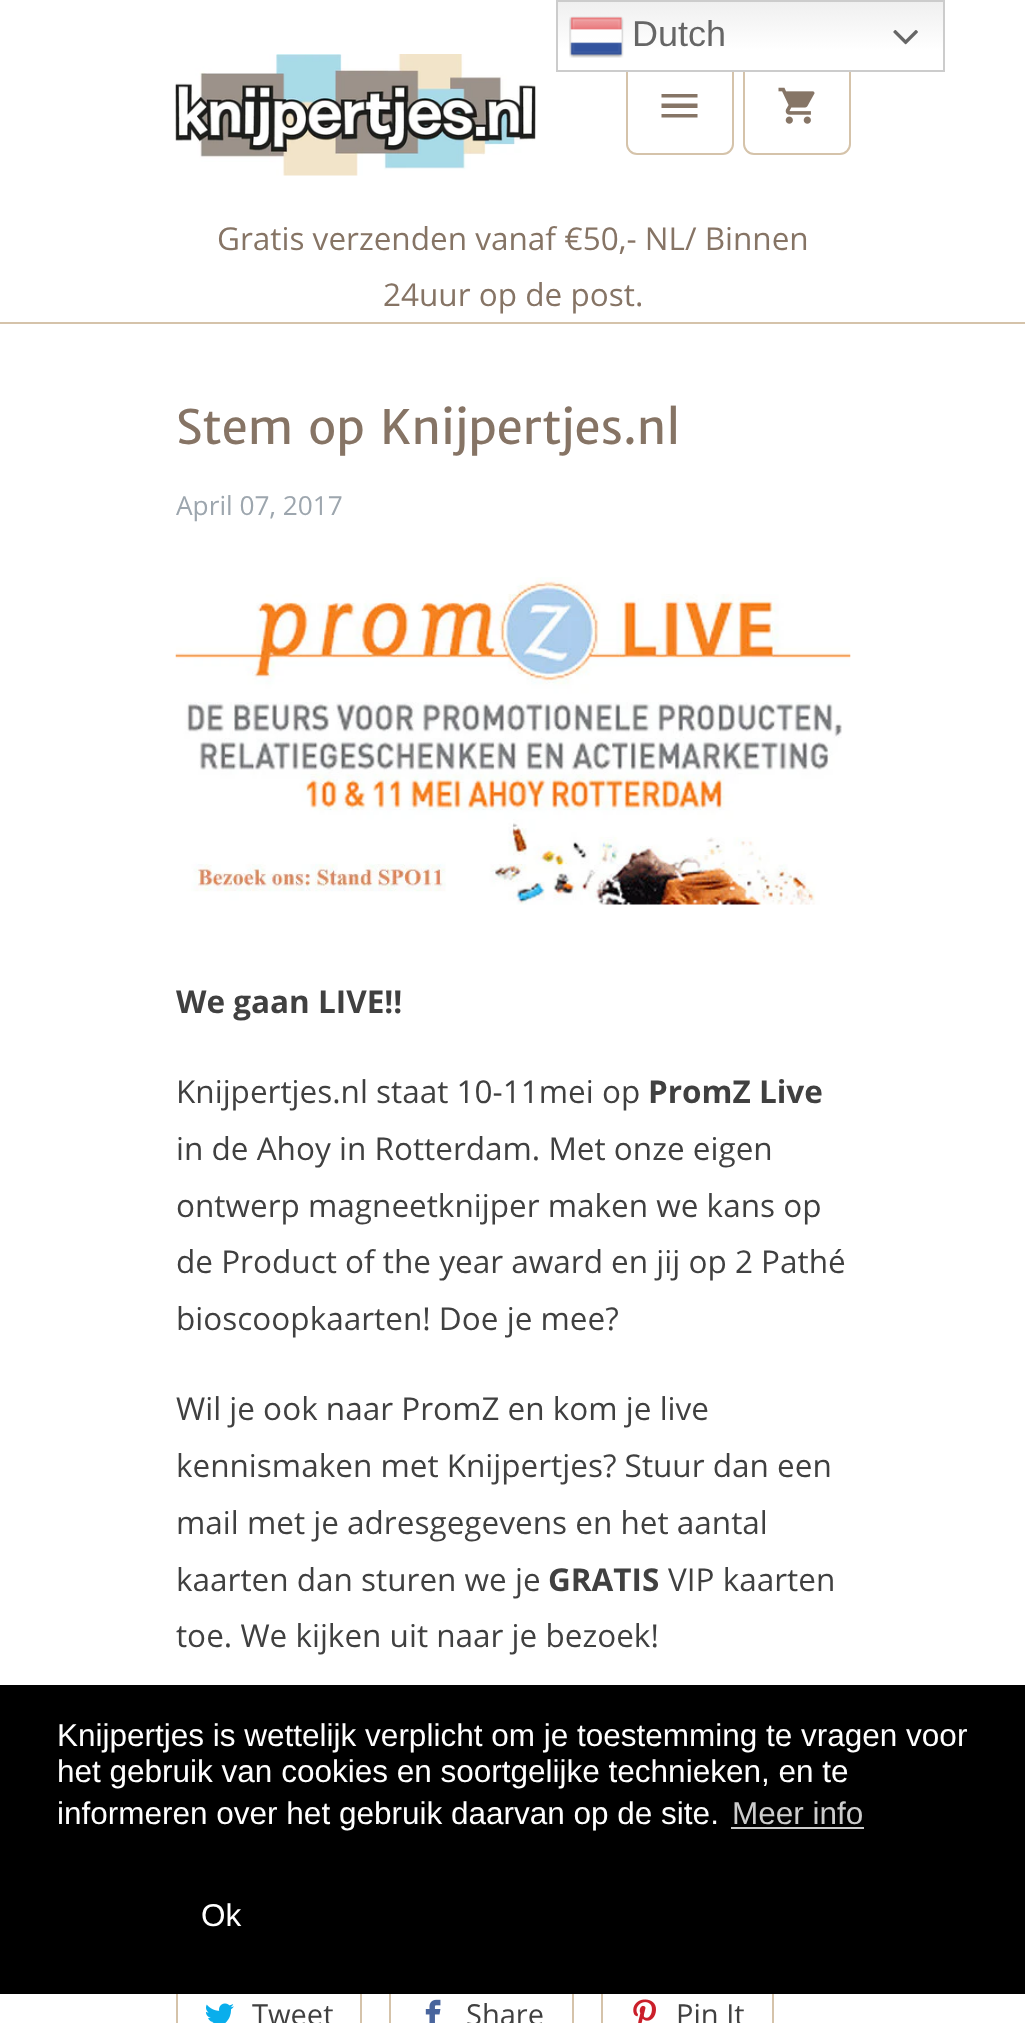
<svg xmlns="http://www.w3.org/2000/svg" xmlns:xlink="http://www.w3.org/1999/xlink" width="1025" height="2023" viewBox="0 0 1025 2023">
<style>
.cls-1{font:36px Liberation Sans;fill:#666666}
.cls-2{font:31.5px Open Sans;fill:#867465}
.cls-3{font:47.25px Merriweather Sans;fill:#867465}
.cls-4{font:26.25px Open Sans;fill:#9da6ae}
.cls-5{font:bold 31.5px Open Sans;fill:#404040}
.cls-6{font:31.5px Open Sans;fill:#404040}
.cls-7{font:29px Open Sans;fill:#404040}
.cls-8{font:31.5px Liberation Sans;fill:#ffffff}
.cls-9{font:31.5px Liberation Sans;fill:#cccccc}
</style>
<defs>
<linearGradient id="g1" gradientUnits="userSpaceOnUse" x1="750" y1="0" x2="750" y2="72"><stop offset="0" stop-color="#efefef"/><stop offset="0.7" stop-color="#ffffff"/></linearGradient>
</defs>
<rect width="100%" height="100%" fill="#ffffff"/>
<rect fill="none" stroke="#d5c3aa" stroke-width="2" x="627" y="57" width="106" height="97" rx="10"/>
<rect fill="none" stroke="#d5c3aa" stroke-width="2" x="744" y="57" width="106" height="97" rx="10"/>
<rect fill="url(#g1)" x="558" y="2" width="385" height="68"/>
<rect fill="none" stroke="#cccccc" stroke-width="2" x="557" y="1" width="387" height="70"/>
<image xlink:href="image0.png" x="569" y="16" width="55" height="42"/>
<image xlink:href="image1.png" x="893" y="30" width="25" height="15"/>
<rect fill="#d5c3aa" x="0" y="322" width="1025" height="2"/>
<image xlink:href="image2.png" x="175" y="54" width="361" height="122"/>
<path fill="#867566" d="M661.5 117.5H697.5V114H661.5ZM661.5 108H697.5V103.5H661.5ZM661.5 94V97.5H697.5V94Z"/>
<image xlink:href="image3.png" x="778" y="87" width="37" height="37"/>
<image xlink:href="image4.png" x="175" y="577" width="676" height="328"/>
<rect fill="none" stroke="#d5c3aa" stroke-width="2" x="177" y="1977" width="184" height="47"/>
<image xlink:href="image5.png" x="205" y="2003" width="29" height="20"/>
<rect fill="none" stroke="#d5c3aa" stroke-width="2" x="390" y="1977" width="183" height="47"/>
<image xlink:href="image6.png" x="425" y="1999" width="16" height="24"/>
<rect fill="none" stroke="#d5c3aa" stroke-width="2" x="602" y="1977" width="171" height="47"/>
<image xlink:href="image7.png" x="633" y="1999" width="23" height="24"/>
<rect fill="#000000" x="0" y="1685" width="1025" height="309"/>
<rect fill="#cccccc" x="731" y="1827" width="133" height="2"/>
<text class="cls-1" x="632" y="46">Dutch</text>
<text class="cls-2" x="217" y="250">Gratis verzenden vanaf €50,- NL/ Binnen</text>
<text class="cls-2" x="383" y="306">24uur op de post.</text>
<text class="cls-3" x="176" y="444">Stem op Knijpertjes.nl</text>
<text class="cls-4" x="176" y="515">April 07, 2017</text>
<text class="cls-5" x="176" y="1013">We gaan LIVE!!</text>
<text class="cls-6" x="176" y="1103">Knijpertjes.nl staat 10-11mei op</text>
<text class="cls-5" x="648" y="1103">PromZ Live</text>
<text class="cls-6"><tspan x="176" y="1160">in de Ahoy in Rotterdam. Met onze eigen</tspan><tspan x="176" y="1217">ontwerp magneetknijper maken we kans op</tspan><tspan x="176" y="1273">de Product of the year award en jij op 2 Pathé</tspan><tspan x="176" y="1330">bioscoopkaarten! Doe je mee?</tspan></text>
<text class="cls-6"><tspan x="176" y="1420">Wil je ook naar PromZ en kom je live</tspan><tspan x="176" y="1477">kennismaken met Knijpertjes? Stuur dan een</tspan><tspan x="176" y="1534">mail met je adresgegevens en het aantal</tspan><tspan x="176" y="1591">kaarten dan sturen we je</tspan></text>
<text class="cls-5" x="548" y="1591">GRATIS</text>
<text class="cls-6" x="668" y="1591">VIP kaarten</text>
<text class="cls-6" x="176" y="1647">toe. We kijken uit naar je bezoek!</text>
<text class="cls-7" x="252" y="2025">Tweet</text>
<text class="cls-7" x="466" y="2025">Share</text>
<text class="cls-7" x="676" y="2025">Pin It</text>
<text class="cls-8"><tspan x="57" y="1746">Knijpertjes is wettelijk verplicht om je toestemming te vragen voor</tspan><tspan x="57" y="1782">het gebruik van cookies en soortgelijke technieken, en te</tspan><tspan x="57" y="1824">informeren over het gebruik daarvan op de site.</tspan></text>
<text class="cls-9" x="732" y="1824">Meer info</text>
<text class="cls-8" x="201" y="1926">Ok</text>
</svg>
